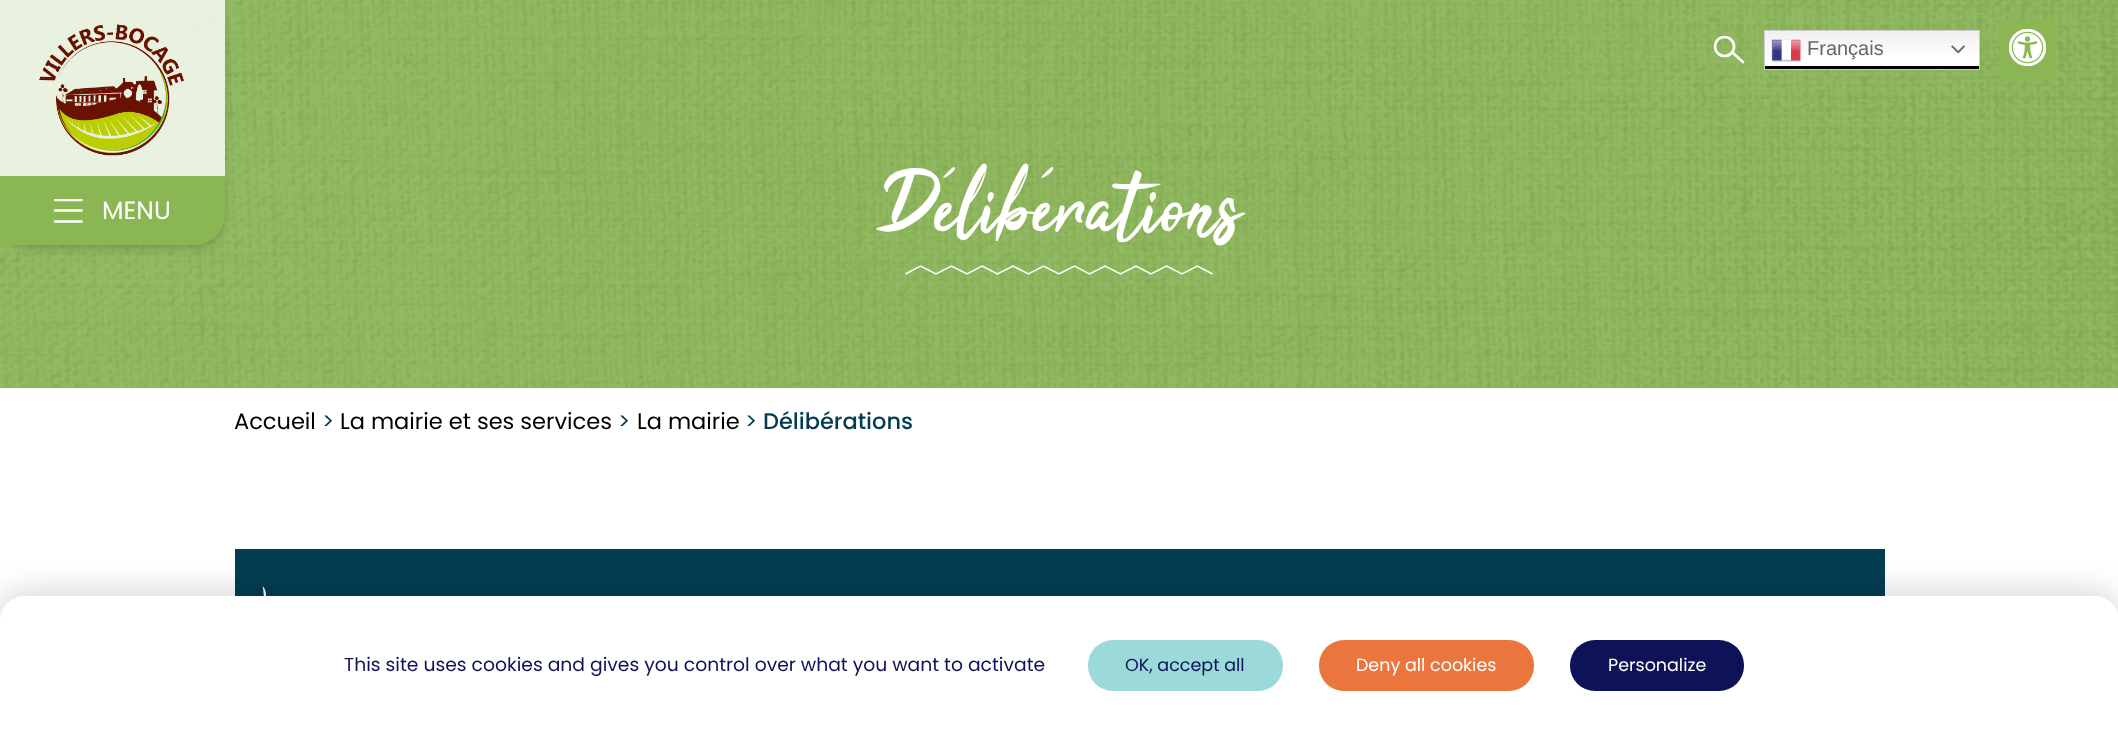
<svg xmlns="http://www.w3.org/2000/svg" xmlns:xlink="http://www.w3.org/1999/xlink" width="2118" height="734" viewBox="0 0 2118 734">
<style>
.cls-1{font:20px Liberation Sans;fill:#666666}
.cls-2{font:25px Poppins;fill:#ffffff}
.cls-3{font:87.5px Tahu;fill:#ffffff}
.cls-4{font:22.5px Poppins;fill:#000000}
.cls-5{font:22.5px Poppins;fill:#043d52}
.cls-6{font:500 22.5px Poppins;fill:#043d52}
.cls-7{font:18.75px Poppins;fill:#0e1358}
.cls-8{font:17.5px Poppins;fill:#0e1358}
.cls-9{font:17.5px Poppins;fill:#ffffff}
</style>
<defs>
<clipPath id="clip1"><rect x="1714" y="35" width="31" height="29"/></clipPath>
<linearGradient id="g1" gradientUnits="userSpaceOnUse" x1="1872" y1="30" x2="1872" y2="70"><stop offset="0" stop-color="#efefef"/><stop offset="0.7" stop-color="#ffffff"/></linearGradient>
<clipPath id="clip2"><path d="M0 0H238V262H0ZM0 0H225V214C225 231 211 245 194 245H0Z" clip-rule="evenodd"/></clipPath>
<clipPath id="clip3"><rect x="54" y="199" width="30" height="24"/></clipPath>
</defs>
<rect width="100%" height="100%" fill="#ffffff"/>
<rect fill="#8ab754" x="0" y="0" width="2118" height="388"/>
<image xlink:href="image4.png" x="0" y="0" width="2118" height="388"/>
<g clip-path="url(#clip1)">
<circle fill="none" stroke="#ffffff" stroke-width="2.7" cx="1724.5" cy="46.5" r="9.5"/>
</g>
<path fill="none" stroke="#ffffff" stroke-width="2.7" stroke-linecap="round" stroke-linejoin="round" d="M1743 62L1733.5 53.5"/>
<rect fill="url(#g1)" x="1765" y="31" width="214" height="35"/>
<rect fill="#000000" x="1765" y="66" width="214" height="3"/>
<rect fill="none" stroke="#cccccc" x="1764.5" y="30.5" width="215" height="39"/>
<image xlink:href="image0.png" x="1771" y="39" width="31" height="23"/>
<image xlink:href="image1.png" x="1951" y="45" width="14" height="9"/>
<rect fill="#8ab754" x="1999" y="19" width="57" height="61"/>
<image xlink:href="image2.png" x="2009" y="29" width="37" height="37"/>
<g clip-path="url(#clip2)">
<rect fill="#000000" fill-opacity="0.16" filter="blur(4px)" x="0" y="4" width="225" height="245" rx="31"/>
</g>
<rect fill="#ffffff" fill-opacity="0.8" x="0" y="0" width="225" height="176"/>
<image xlink:href="image3.png" x="39" y="24" width="145" height="132"/>
<path fill="#8ab754" d="M0 176H225V214C225 231 211 245 194 245H0Z"/>
<g clip-path="url(#clip3)">
<path fill="none" stroke="#ffffff" stroke-width="2.5" stroke-linecap="round" d="M55 200H81.5"/>
</g>
<path fill="none" stroke="#ffffff" stroke-width="2.5" stroke-linecap="round" d="M55 210.5H81.5M55 221.5H81.5"/>
<path fill="none" stroke="#ffffff" stroke-width="1.5" d="M905.5 274L920.5 266L936 274L951.5 266L967 274L982 266L997.5 274L1013 266L1028.5 274L1043.5 266L1059 274L1074.5 266L1089.5 274L1105 266L1120.5 274L1136 266L1151 274L1166.5 266L1182 274L1197.5 266L1212.5 274"/>
<rect fill="#043d52" x="235" y="549" width="1650" height="47"/>
<image xlink:href="image5.png" x="262" y="586" width="4" height="10"/>
<rect fill="#000000" fill-opacity="0.16" filter="blur(15.5px)" x="0" y="591" width="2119" height="139" rx="25"/>
<path fill="#ffffff" d="M25 596H2094C2108 596 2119 607 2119 621V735H0V621C0 607 11 596 25 596Z"/>
<rect fill="#9cd9d9" x="1088" y="640" width="195" height="51" rx="25"/>
<rect fill="#ea753d" x="1319" y="640" width="215" height="51" rx="25"/>
<rect fill="#0e1358" x="1570" y="640" width="174" height="51" rx="25"/>
<text class="cls-1" x="1807" y="55">Français</text>
<text class="cls-2" x="102" y="219">MENU</text>
<text class="cls-3" x="876" y="231">Délibérations</text>
<text class="cls-4" x="234" y="429">Accueil</text>
<text class="cls-5" x="322" y="429">&gt;</text>
<text class="cls-4" x="340" y="429">La mairie et ses services</text>
<text class="cls-5" x="618" y="429">&gt;</text>
<text class="cls-4" x="637" y="429">La mairie</text>
<text class="cls-5" x="745" y="429">&gt;</text>
<text class="cls-6" x="763" y="429">Délibérations</text>
<text class="cls-7" x="344" y="671">This site uses cookies and gives you control over what you want to activate</text>
<text class="cls-8" x="1125" y="671">OK, accept all</text>
<text class="cls-9" x="1356" y="671">Deny all cookies</text>
<text class="cls-9" x="1608" y="671">Personalize</text>
</svg>
